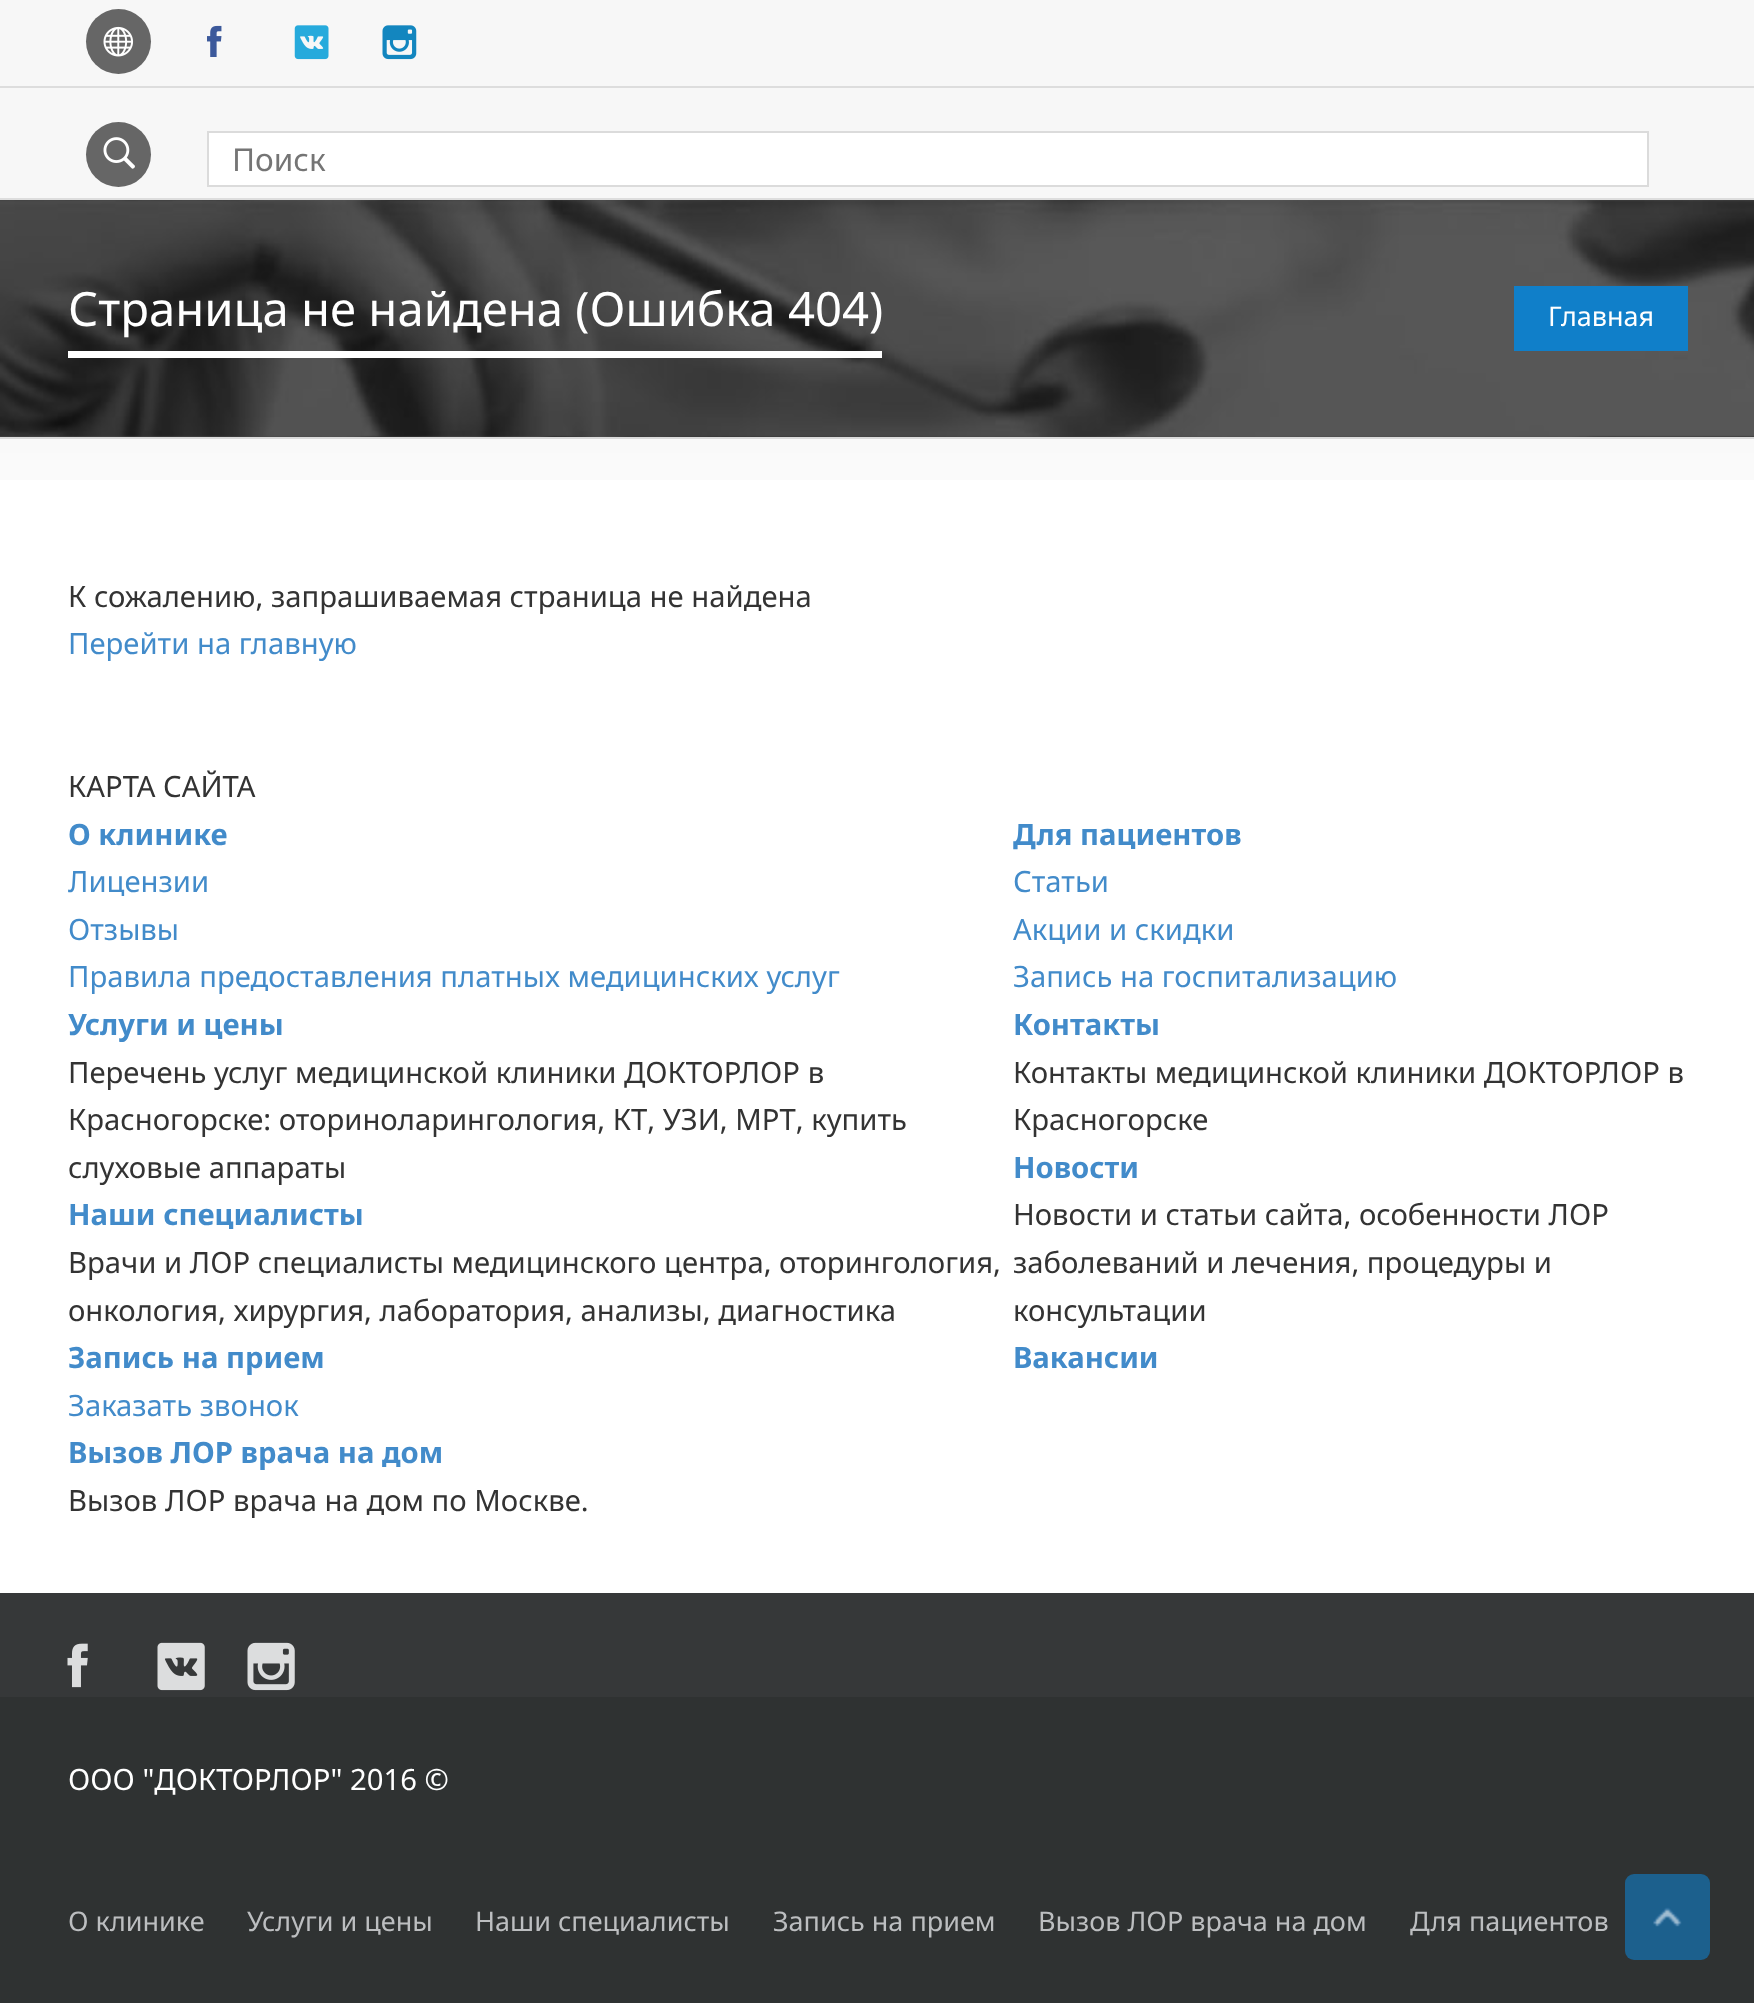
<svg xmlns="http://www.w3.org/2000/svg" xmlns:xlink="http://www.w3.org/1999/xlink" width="1754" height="2003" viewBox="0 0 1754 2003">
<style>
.cls-1{font:31.5px Noto Sans;fill:#757575}
.cls-2{font:47.25px Noto Sans;fill:#ffffff}
.cls-3{font:27px Noto Sans;fill:#ffffff}
.cls-4{font:29.25px Noto Sans;fill:#333333}
.cls-5{font:29.25px Noto Sans;fill:#428bca}
.cls-6{font:bold 29.25px Noto Sans;fill:#428bca}
.cls-7{font:29.25px Noto Sans;fill:#ffffff}
.cls-8{font:27px Noto Sans;fill:#bcbec0}
</style>
<rect width="100%" height="100%" fill="#363839"/>
<rect fill="#f7f7f7" x="0" y="0" width="1754" height="198"/>
<rect fill="#dddddd" x="0" y="86" width="1754" height="2"/>
<circle fill="#666666" cx="118.5" cy="41.5" r="32.5"/>
<image xlink:href="image0.png" x="103" y="26" width="31" height="31"/>
<image xlink:href="image1.png" x="207" y="25" width="15" height="32"/>
<image xlink:href="image2.png" x="294" y="25" width="35" height="35"/>
<image xlink:href="image3.png" x="382" y="25" width="35" height="35"/>
<rect fill="#dddddd" x="0" y="198" width="1754" height="2"/>
<circle fill="#666666" cx="118.5" cy="154.5" r="32.5"/>
<image xlink:href="image4.png" x="103" y="137" width="32" height="32"/>
<rect fill="#ffffff" stroke="#dbdbdb" stroke-width="2" x="208" y="132" width="1440" height="54"/>
<rect fill="#ffffff" x="0" y="480" width="1754" height="1113"/>
<image xlink:href="image5.png" x="0" y="439" width="1754" height="41"/>
<image xlink:href="image6.png" x="0" y="200" width="1754" height="237"/>
<rect fill="#dadada" x="0" y="437" width="1754" height="2"/>
<rect fill="#ffffff" x="68" y="351" width="814" height="7"/>
<rect fill="#107fc9" x="1514" y="286" width="174" height="65"/>
<image xlink:href="image7.png" x="67" y="1643" width="21" height="45"/>
<image xlink:href="image8.png" x="157" y="1642" width="48" height="49"/>
<image xlink:href="image9.png" x="247" y="1642" width="48" height="49"/>
<rect fill="#2f3232" x="0" y="1697" width="1754" height="306"/>
<rect fill="#1c608d" x="1625" y="1874" width="85" height="86" rx="9"/>
<image xlink:href="image10.png" x="1653" y="1907" width="29" height="20"/>
<text class="cls-1" x="232" y="171">Поиск</text>
<text class="cls-2" x="68" y="326">Страница не найдена (Ошибка 404)</text>
<text class="cls-3" x="1548" y="326">Главная</text>
<text class="cls-4" x="68" y="607">К сожалению, запрашиваемая страница не найдена</text>
<text class="cls-5" x="68" y="654">Перейти на главную</text>
<text class="cls-4" x="68" y="797">КАРТА САЙТА</text>
<text class="cls-6" x="68" y="845">О клинике</text>
<text class="cls-5"><tspan x="68" y="892">Лицензии</tspan><tspan x="68" y="940">Отзывы</tspan><tspan x="68" y="987">Правила предоставления платных медицинских услуг</tspan></text>
<text class="cls-6" x="68" y="1035">Услуги и цены</text>
<text class="cls-4"><tspan x="68" y="1083">Перечень услуг медицинской клиники ДОКТОРЛОР в</tspan><tspan x="68" y="1130">Красногорске: оториноларингология, КТ, УЗИ, МРТ, купить</tspan><tspan x="68" y="1178">слуховые аппараты</tspan></text>
<text class="cls-6" x="68" y="1225">Наши специалисты</text>
<text class="cls-4"><tspan x="68" y="1273">Врачи и ЛОР специалисты медицинского центра, оторингология,</tspan><tspan x="68" y="1321">онкология, хирургия, лаборатория, анализы, диагностика</tspan></text>
<text class="cls-6" x="68" y="1368">Запись на прием</text>
<text class="cls-5" x="68" y="1416">Заказать звонок</text>
<text class="cls-6" x="68" y="1463">Вызов ЛОР врача на дом</text>
<text class="cls-4" x="68" y="1511">Вызов ЛОР врача на дом по Москве.</text>
<text class="cls-6" x="1013" y="845">Для пациентов</text>
<text class="cls-5"><tspan x="1013" y="892">Статьи</tspan><tspan x="1013" y="940">Акции и скидки</tspan><tspan x="1013" y="987">Запись на госпитализацию</tspan></text>
<text class="cls-6" x="1013" y="1035">Контакты</text>
<text class="cls-4"><tspan x="1013" y="1083">Контакты медицинской клиники ДОКТОРЛОР в</tspan><tspan x="1013" y="1130">Красногорске</tspan></text>
<text class="cls-6" x="1013" y="1178">Новости</text>
<text class="cls-4"><tspan x="1013" y="1225">Новости и статьи сайта, особенности ЛОР</tspan><tspan x="1013" y="1273">заболеваний и лечения, процедуры и</tspan><tspan x="1013" y="1321">консультации</tspan></text>
<text class="cls-6" x="1013" y="1368">Вакансии</text>
<text class="cls-7" x="68" y="1790">ООО "ДОКТОРЛОР" 2016 ©</text>
<text class="cls-8" x="68" y="1931">О клинике</text>
<text class="cls-8" x="247" y="1931">Услуги и цены</text>
<text class="cls-8" x="475" y="1931">Наши специалисты</text>
<text class="cls-8" x="773" y="1931">Запись на прием</text>
<text class="cls-8" x="1038" y="1931">Вызов ЛОР врача на дом</text>
<text class="cls-8" x="1410" y="1931">Для пациентов</text>
</svg>
